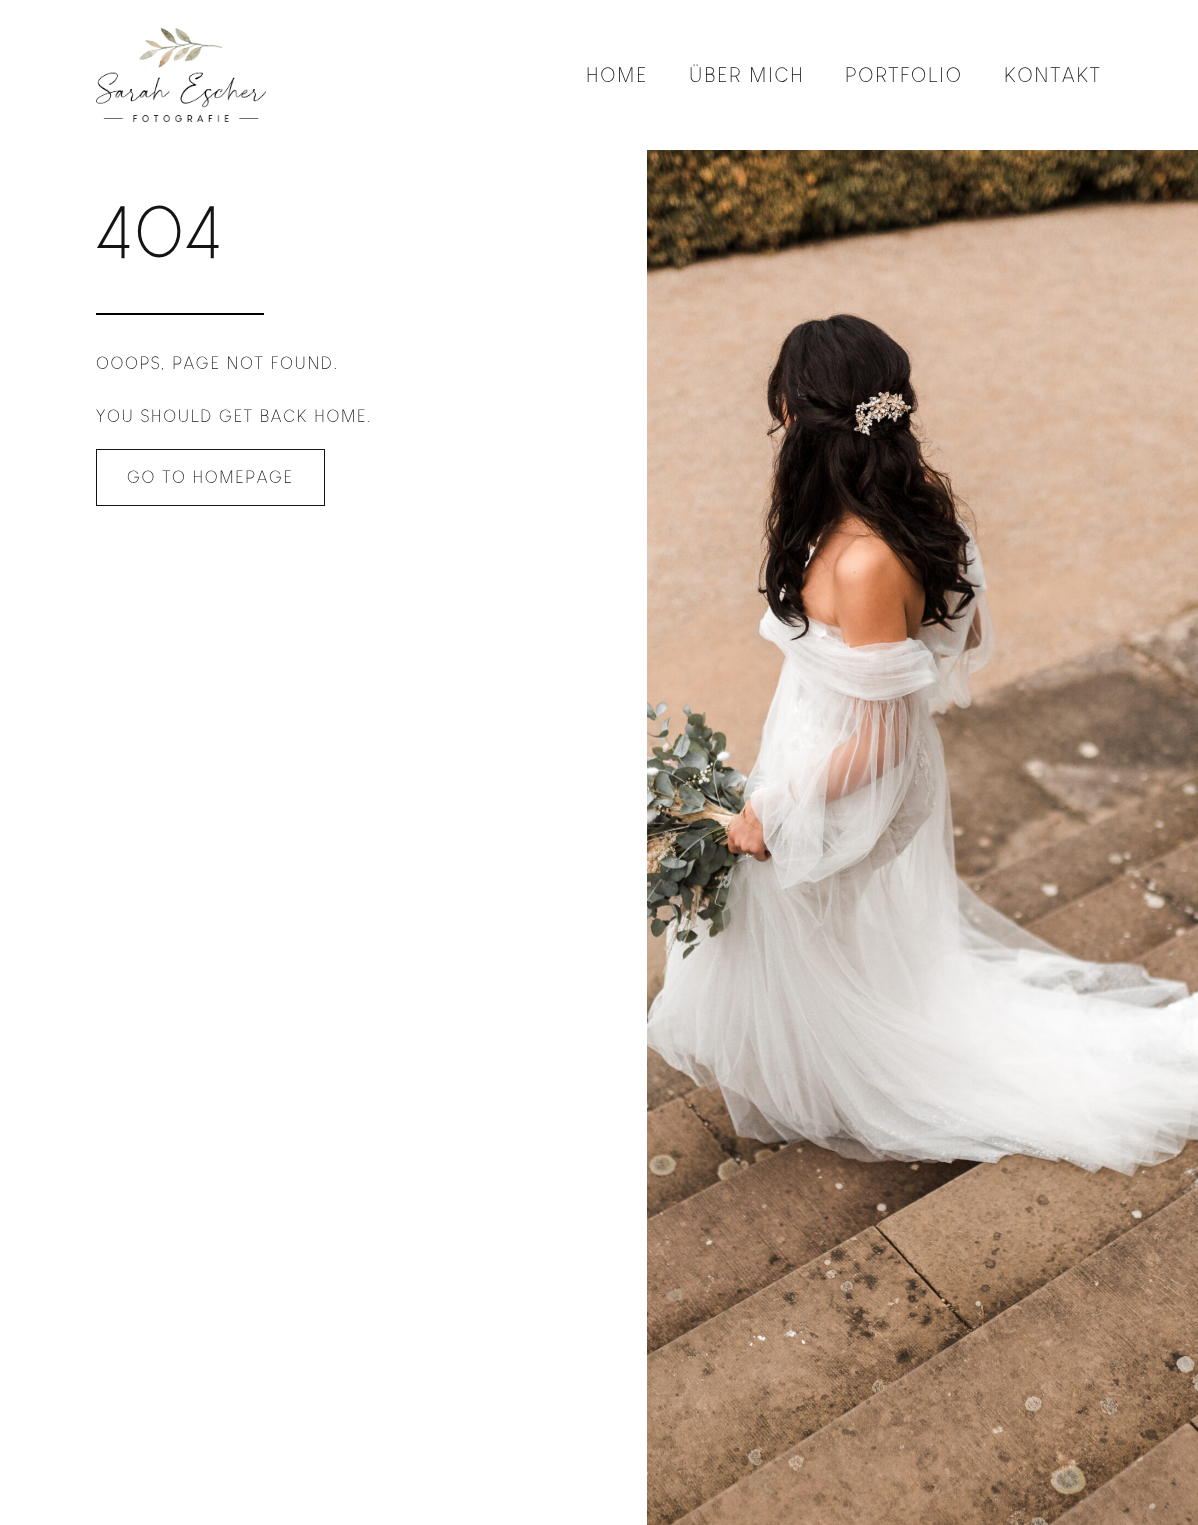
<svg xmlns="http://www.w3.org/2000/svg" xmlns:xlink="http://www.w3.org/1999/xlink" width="1198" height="1525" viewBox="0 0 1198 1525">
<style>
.cls-1{font:300 20.75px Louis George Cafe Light;letter-spacing:2px;fill:#141414}
.cls-2{font:300 80px Louis George Cafe Light;letter-spacing:1px;fill:#141414}
.cls-3{font:300 17.6px Louis George Cafe Light;letter-spacing:1.75px;fill:#141414}
</style>
<rect width="100%" height="100%" fill="#ffffff"/>
<image xlink:href="image0.png" x="96" y="28" width="170" height="94"/>
<rect fill="#000000" x="96" y="313" width="168" height="2"/>
<rect fill="none" stroke="#141414" x="96.5" y="449.5" width="228" height="56"/>
<image xlink:href="image1.png" x="647" y="150" width="551" height="1375"/>
<text class="cls-1" x="586" y="82">HOME</text>
<text class="cls-1" x="689" y="82">ÜBER MICH</text>
<text class="cls-1" x="845" y="82">PORTFOLIO</text>
<text class="cls-1" x="1004" y="82">KONTAKT</text>
<text class="cls-2" x="96" y="258">404</text>
<text class="cls-3" x="96" y="369">OOOPS, PAGE NOT FOUND.</text>
<text class="cls-3" x="96" y="422">YOU SHOULD GET BACK HOME.</text>
<text class="cls-3" x="127" y="483">GO TO HOMEPAGE</text>
</svg>
